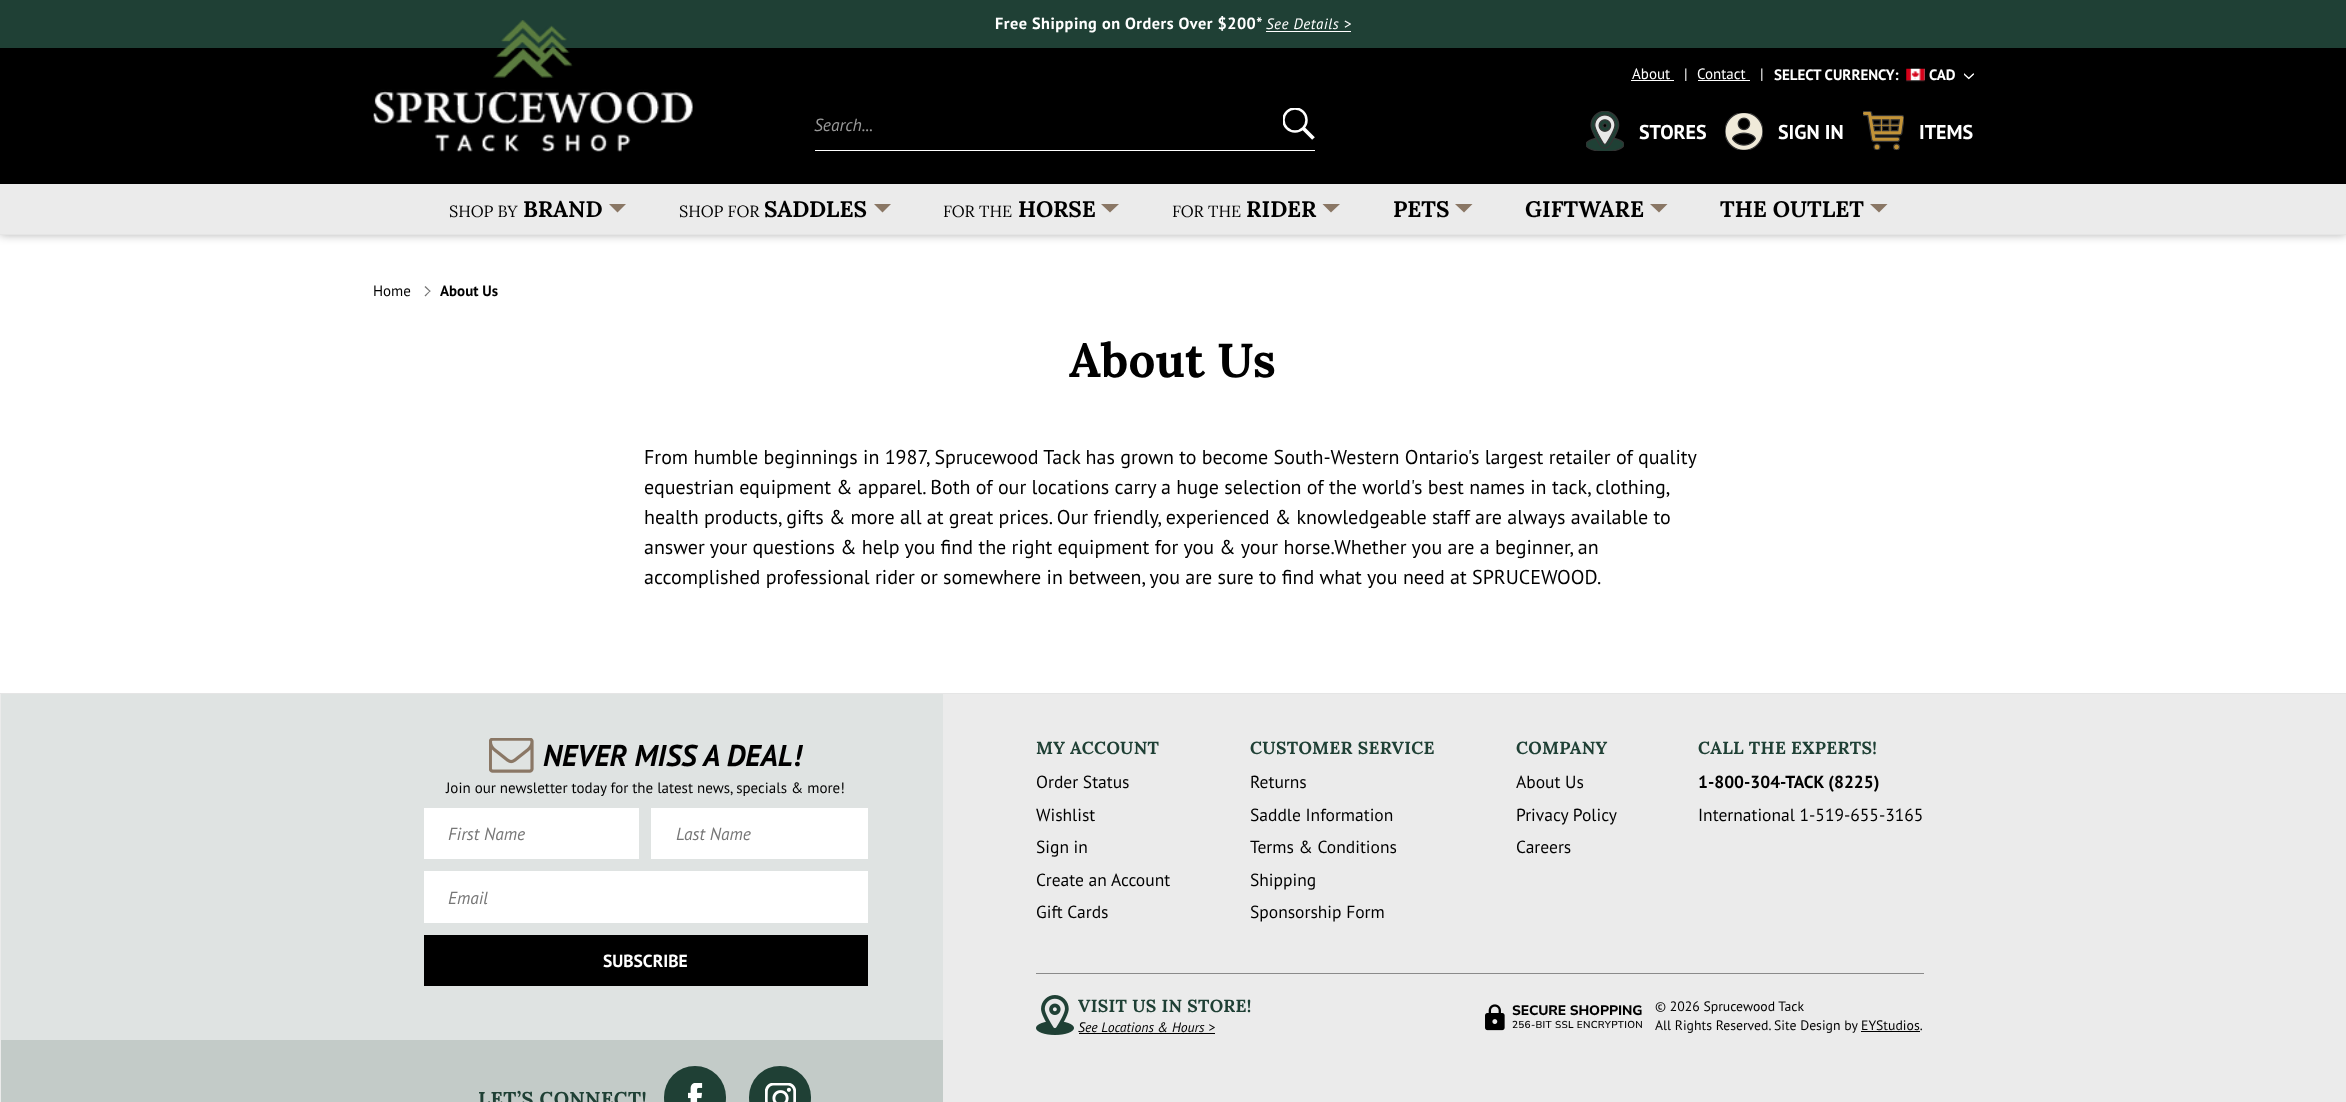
<svg xmlns="http://www.w3.org/2000/svg" xmlns:xlink="http://www.w3.org/1999/xlink" width="2346" height="1102" viewBox="0 0 2346 1102">
<style>
.cls-1{font:bold 16.25px PT Sans;letter-spacing:0.5px;fill:#ffffff}
.cls-2{font:italic 15px PT Sans;letter-spacing:0.5px;fill:#ffffff}
.cls-3{font:italic 17.5px PT Sans;fill:#999999}
.cls-4{font:15px PT Sans;fill:#ffffff}
.cls-5{font:bold 15px PT Sans;fill:#ffffff}
.cls-6{font:bold 20px PT Sans;fill:#ffffff}
.cls-7{font:16.25px Lora;fill:#000000}
.cls-8{font:bold 22.5px Lora;fill:#000000}
.cls-9{font:15px PT Sans;fill:#000000}
.cls-10{font:bold 15px PT Sans;fill:#000000}
.cls-11{font:bold 47.5px Lora;letter-spacing:0.25px;fill:#000000}
.cls-12{font:20px PT Sans;fill:#000000}
.cls-13{font:italic bold 30px PT Sans;fill:#000000}
.cls-14{font:italic 17.5px PT Sans;fill:#777777}
.cls-15{font:bold 17.5px PT Sans;fill:#ffffff}
.cls-16{font:bold 20px Lora;letter-spacing:0.4px;fill:#1f4035}
.cls-17{font:bold 17.5px Lora;letter-spacing:0.3px;fill:#1f4035}
.cls-18{font:17.5px PT Sans;fill:#000000}
.cls-19{font:bold 17.5px PT Sans;fill:#000000}
.cls-20{font:italic 13.75px PT Sans;fill:#000000}
.cls-21{font:800 13.75px Nunito Sans;letter-spacing:-0.1px;fill:#000000}
.cls-22{font:600 10px Nunito Sans;letter-spacing:0.3px;fill:#000000}
.cls-23{font:13.75px PT Sans;fill:#000000}
</style>
<defs>
<clipPath id="clip1"><rect x="1283" y="108" width="32" height="32"/></clipPath>
</defs>
<rect width="100%" height="100%" fill="#ffffff"/>
<rect fill="#000000" fill-opacity="0.3" filter="blur(5px)" x="0" y="0" width="2346" height="235"/>
<rect fill="#e5e5e5" x="0" y="234" width="2346" height="1"/>
<rect fill="#1f4035" x="0" y="0" width="2346" height="48"/>
<rect fill="#ffffff" x="1266" y="31" width="85" height="1"/>
<rect fill="#000000" x="0" y="48" width="2346" height="136"/>
<image xlink:href="image0.png" x="373" y="20" width="320" height="132"/>
<g clip-path="url(#clip1)">
<circle fill="none" stroke="#ffffff" stroke-width="2.5" cx="1295" cy="120" r="11.5"/>
</g>
<path fill="none" stroke="#ffffff" stroke-width="3.8" d="M1303.5 128.5L1313.5 138.5"/>
<rect fill="#ffffff" x="815" y="150" width="500" height="1"/>
<rect fill="#ffffff" x="1631" y="80" width="43" height="1"/>
<rect fill="#ffffff" x="1698" y="80" width="52" height="1"/>
<image xlink:href="image1.png" x="1906" y="68" width="19" height="14"/>
<image xlink:href="image2.png" x="1964" y="73" width="10" height="7"/>
<image xlink:href="image3.png" x="1586" y="111" width="38" height="40"/>
<image xlink:href="image4.png" x="1725" y="113" width="38" height="37"/>
<image xlink:href="image5.png" x="1863" y="111" width="41" height="39"/>
<rect fill="#ebebeb" x="0" y="184" width="2346" height="50"/>
<path fill="#8a7765" d="M609 204L617.5 212.5L626 204Z"/>
<path fill="#8a7765" d="M874 204L882.5 212.5L891 204Z"/>
<path fill="#8a7765" d="M1101 204L1110 212.5L1119 204Z"/>
<path fill="#8a7765" d="M1322.5 204L1331 212.5L1340 204Z"/>
<path fill="#8a7765" d="M1455 204L1464 212.5L1472.5 204Z"/>
<path fill="#8a7765" d="M1650 204L1659 212.5L1667.5 204Z"/>
<path fill="#8a7765" d="M1870 204L1879 212.5L1887.5 204Z"/>
<path fill="#757575" d="M425.5 286L430.5 291L430 292L424.5 287Z"/>
<path fill="#757575" d="M430 290.5L430.5 291L425.5 296.5L424.5 295.5Z"/>
<rect fill="#ebebeb" x="0" y="694" width="2346" height="408"/>
<rect fill="#e5e5e5" x="0" y="693" width="2346" height="1"/>
<rect fill="#c3cbc8" x="1" y="1040" width="942" height="62"/>
<rect fill="#dfe3e2" x="1" y="694" width="942" height="346"/>
<image xlink:href="image6.png" x="489" y="738" width="45" height="35"/>
<rect fill="#ffffff" x="424" y="808" width="215" height="51"/>
<rect fill="#ffffff" x="651" y="808" width="217" height="51"/>
<rect fill="#ffffff" x="424" y="871" width="444" height="52"/>
<rect fill="#000000" x="424" y="935" width="444" height="51"/>
<rect fill="#1f4035" x="664" y="1066" width="62" height="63" rx="31"/>
<image xlink:href="image7.png" x="688" y="1083" width="15" height="19"/>
<rect fill="#1f4035" x="749" y="1066" width="62" height="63" rx="31"/>
<image xlink:href="image8.png" x="765" y="1083" width="31" height="19"/>
<rect fill="#8a8a8a" x="1036" y="973" width="888" height="1"/>
<image xlink:href="image9.png" x="1036" y="995" width="38" height="40"/>
<rect fill="#000000" x="1079" y="1033" width="136" height="1"/>
<image xlink:href="image10.png" x="1485" y="1004" width="20" height="27"/>
<rect fill="#000000" x="1861" y="1031" width="59" height="1"/>
<text class="cls-1" x="995" y="29">Free Shipping on Orders Over $200*</text>
<text class="cls-2" x="1266" y="29">See Details &gt;</text>
<text class="cls-3" x="814" y="131">Search...</text>
<text class="cls-4" x="1632" y="79">About</text>
<text class="cls-4" x="1684" y="79">|</text>
<text class="cls-4" x="1697" y="79">Contact</text>
<text class="cls-4" x="1760" y="79">|</text>
<text class="cls-5" x="1774" y="80">SELECT CURRENCY:</text>
<text class="cls-5" x="1929" y="80">CAD</text>
<text class="cls-6" x="1639" y="139">STORES</text>
<text class="cls-6" x="1778" y="139">SIGN IN</text>
<text class="cls-6" x="1919" y="139">ITEMS</text>
<text class="cls-7" x="449" y="217">SHOP BY</text>
<text class="cls-8" x="523" y="217">BRAND</text>
<text class="cls-7" x="679" y="217">SHOP FOR</text>
<text class="cls-8" x="764" y="217">SADDLES</text>
<text class="cls-7" x="943" y="217">FOR THE</text>
<text class="cls-8" x="1018" y="217">HORSE</text>
<text class="cls-7" x="1172" y="217">FOR THE</text>
<text class="cls-8" x="1246" y="217">RIDER</text>
<text class="cls-8" x="1393" y="217">PETS</text>
<text class="cls-8" x="1525" y="217">GIFTWARE</text>
<text class="cls-8" x="1720" y="217">THE OUTLET</text>
<text class="cls-9" x="373" y="296">Home</text>
<text class="cls-10" x="440" y="296">About Us</text>
<text class="cls-11" x="1069" y="377">About Us</text>
<text class="cls-12"><tspan x="644" y="464">From humble beginnings in 1987, Sprucewood Tack has grown to become South-Western Ontario's largest retailer of quality</tspan><tspan x="644" y="494">equestrian equipment &amp; apparel. Both of our locations carry a huge selection of the world's best names in tack, clothing,</tspan><tspan x="644" y="524">health products, gifts &amp; more all at great prices. Our friendly, experienced &amp; knowledgeable staff are always available to</tspan><tspan x="644" y="554">answer your questions &amp; help you find the right equipment for you &amp; your horse.Whether you are a beginner, an</tspan><tspan x="644" y="584">accomplished professional rider or somewhere in between, you are sure to find what you need at SPRUCEWOOD.</tspan></text>
<text class="cls-13" x="543" y="766">NEVER MISS A DEAL!</text>
<text class="cls-9" x="446" y="793">Join our newsletter today for the latest news, specials &amp; more!</text>
<text class="cls-14" x="448" y="840">First Name</text>
<text class="cls-14" x="676" y="840">Last Name</text>
<text class="cls-14" x="448" y="904">Email</text>
<text class="cls-15" x="603" y="967">SUBSCRIBE</text>
<text class="cls-16" x="478" y="1106">LET’S CONNECT!</text>
<text class="cls-17" x="1036" y="754">MY ACCOUNT</text>
<text class="cls-18"><tspan x="1036" y="788">Order Status</tspan><tspan x="1036" y="821">Wishlist</tspan><tspan x="1036" y="853">Sign in</tspan><tspan x="1036" y="886">Create an Account</tspan><tspan x="1036" y="918">Gift Cards</tspan></text>
<text class="cls-17" x="1250" y="754">CUSTOMER SERVICE</text>
<text class="cls-18"><tspan x="1250" y="788">Returns</tspan><tspan x="1250" y="821">Saddle Information</tspan><tspan x="1250" y="853">Terms &amp; Conditions</tspan><tspan x="1250" y="886">Shipping</tspan><tspan x="1250" y="918">Sponsorship Form</tspan></text>
<text class="cls-17" x="1516" y="754">COMPANY</text>
<text class="cls-18"><tspan x="1516" y="788">About Us</tspan><tspan x="1516" y="821">Privacy Policy</tspan><tspan x="1516" y="853">Careers</tspan></text>
<text class="cls-17" x="1698" y="754">CALL THE EXPERTS!</text>
<text class="cls-19" x="1698" y="788">1-800-304-TACK (8225)</text>
<text class="cls-18" x="1698" y="821">International 1-519-655-3165</text>
<text class="cls-17" x="1078" y="1012">VISIT US IN STORE!</text>
<text class="cls-20" x="1078" y="1032">See Locations &amp; Hours &gt;</text>
<text class="cls-21" x="1512" y="1015">SECURE SHOPPING</text>
<text class="cls-22" x="1512" y="1028">256-BIT SSL ENCRYPTION</text>
<text class="cls-23"><tspan x="1655" y="1011">© 2026 Sprucewood Tack</tspan><tspan x="1655" y="1030">All Rights Reserved. Site Design by EYStudios.</tspan></text>
</svg>
